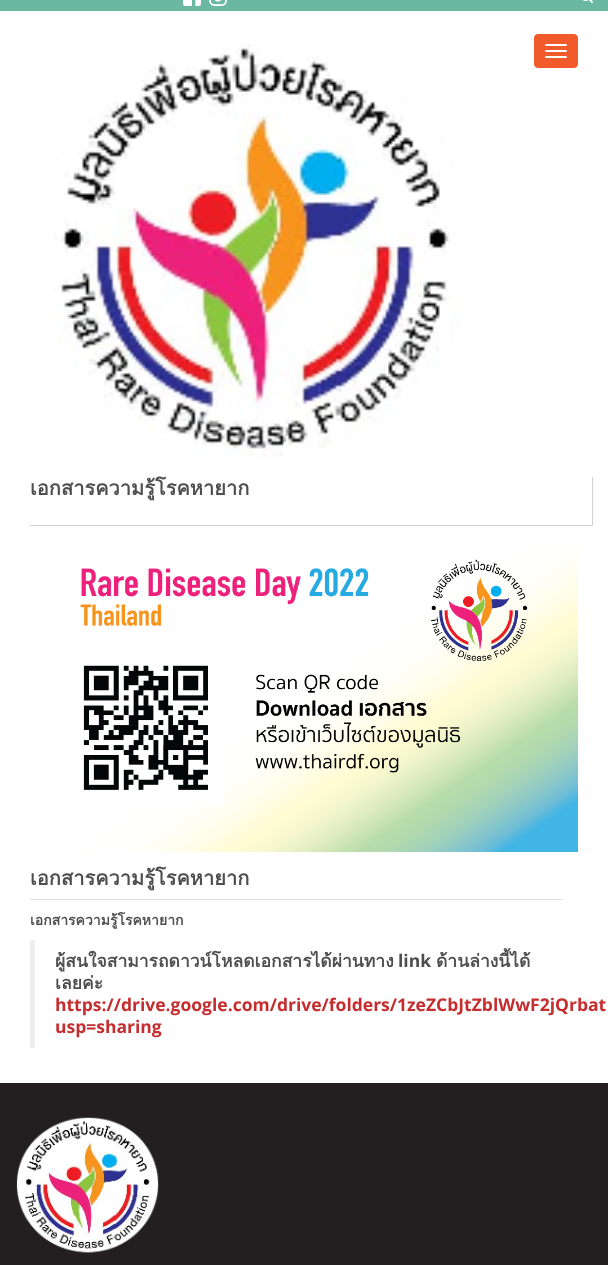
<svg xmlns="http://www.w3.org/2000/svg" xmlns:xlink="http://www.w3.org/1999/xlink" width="608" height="1265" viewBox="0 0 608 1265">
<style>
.cls-1{font:bold 20px Loma;fill:#4e4e4e}
.cls-2{font:bold 14px Loma;fill:#4e4e4e}
.cls-3{font:bold 17.5px Loma;fill:#4e4e4e}
.cls-4{font:bold 17.5px Open Sans;fill:#4e4e4e}
.cls-5{font:bold 17.5px Open Sans;fill:#c52d2f}
</style>
<rect width="100%" height="100%" fill="#ffffff"/>
<rect fill="#6ab8a0" x="0" y="0" width="608" height="11"/>
<image xlink:href="image0.png" x="183" y="0" width="18" height="6"/>
<image xlink:href="image1.png" x="209" y="0" width="18" height="6"/>
<image xlink:href="image2.png" x="582" y="0" width="11" height="3"/>
<image xlink:href="image3.png" x="49" y="44" width="411" height="414"/>
<rect fill="#f15a2b" stroke="#f15a2b" x="534.5" y="34.5" width="43" height="33" rx="3.5"/>
<rect fill="#ffffff" x="545" y="44" width="22" height="2" rx="1"/>
<rect fill="#ffffff" x="545" y="50" width="22" height="2" rx="1"/>
<rect fill="#ffffff" x="545" y="56" width="22" height="2" rx="1"/>
<rect fill="#d1d1d1" x="592" y="477" width="1" height="49"/>
<rect fill="#d1d1d1" x="30" y="525" width="562" height="1"/>
<image xlink:href="image4.png" x="80" y="544" width="498" height="308"/>
<rect fill="#e1e1e1" x="30" y="899" width="533" height="1"/>
<rect fill="#eeeeee" x="30" y="940" width="5" height="108"/>
<rect fill="#231f20" x="0" y="1083" width="608" height="182"/>
<image xlink:href="image5.png" x="16" y="1117" width="143" height="136"/>
<text class="cls-1" x="30" y="495">เอกสารความรู้โรคหายาก</text>
<text class="cls-1" x="30" y="885">เอกสารความรู้โรคหายาก</text>
<text class="cls-2" x="30" y="925">เอกสารความรู้โรคหายาก</text>
<text class="cls-3" x="55" y="967">ผู้สนใจสามารถดาวน์โหลดเอกสารได้ผ่านทาง</text>
<text class="cls-4" x="398" y="967">link</text>
<text class="cls-3" x="436" y="967">ด้านล่างนี้ได้</text>
<text class="cls-3" x="55" y="989">เลยค่ะ</text>
<text class="cls-5"><tspan x="55" y="1011">https://drive.google.com/drive/folders/1zeZCbJtZblWwF2jQrbat</tspan><tspan x="55" y="1033">usp=sharing</tspan></text>
</svg>
